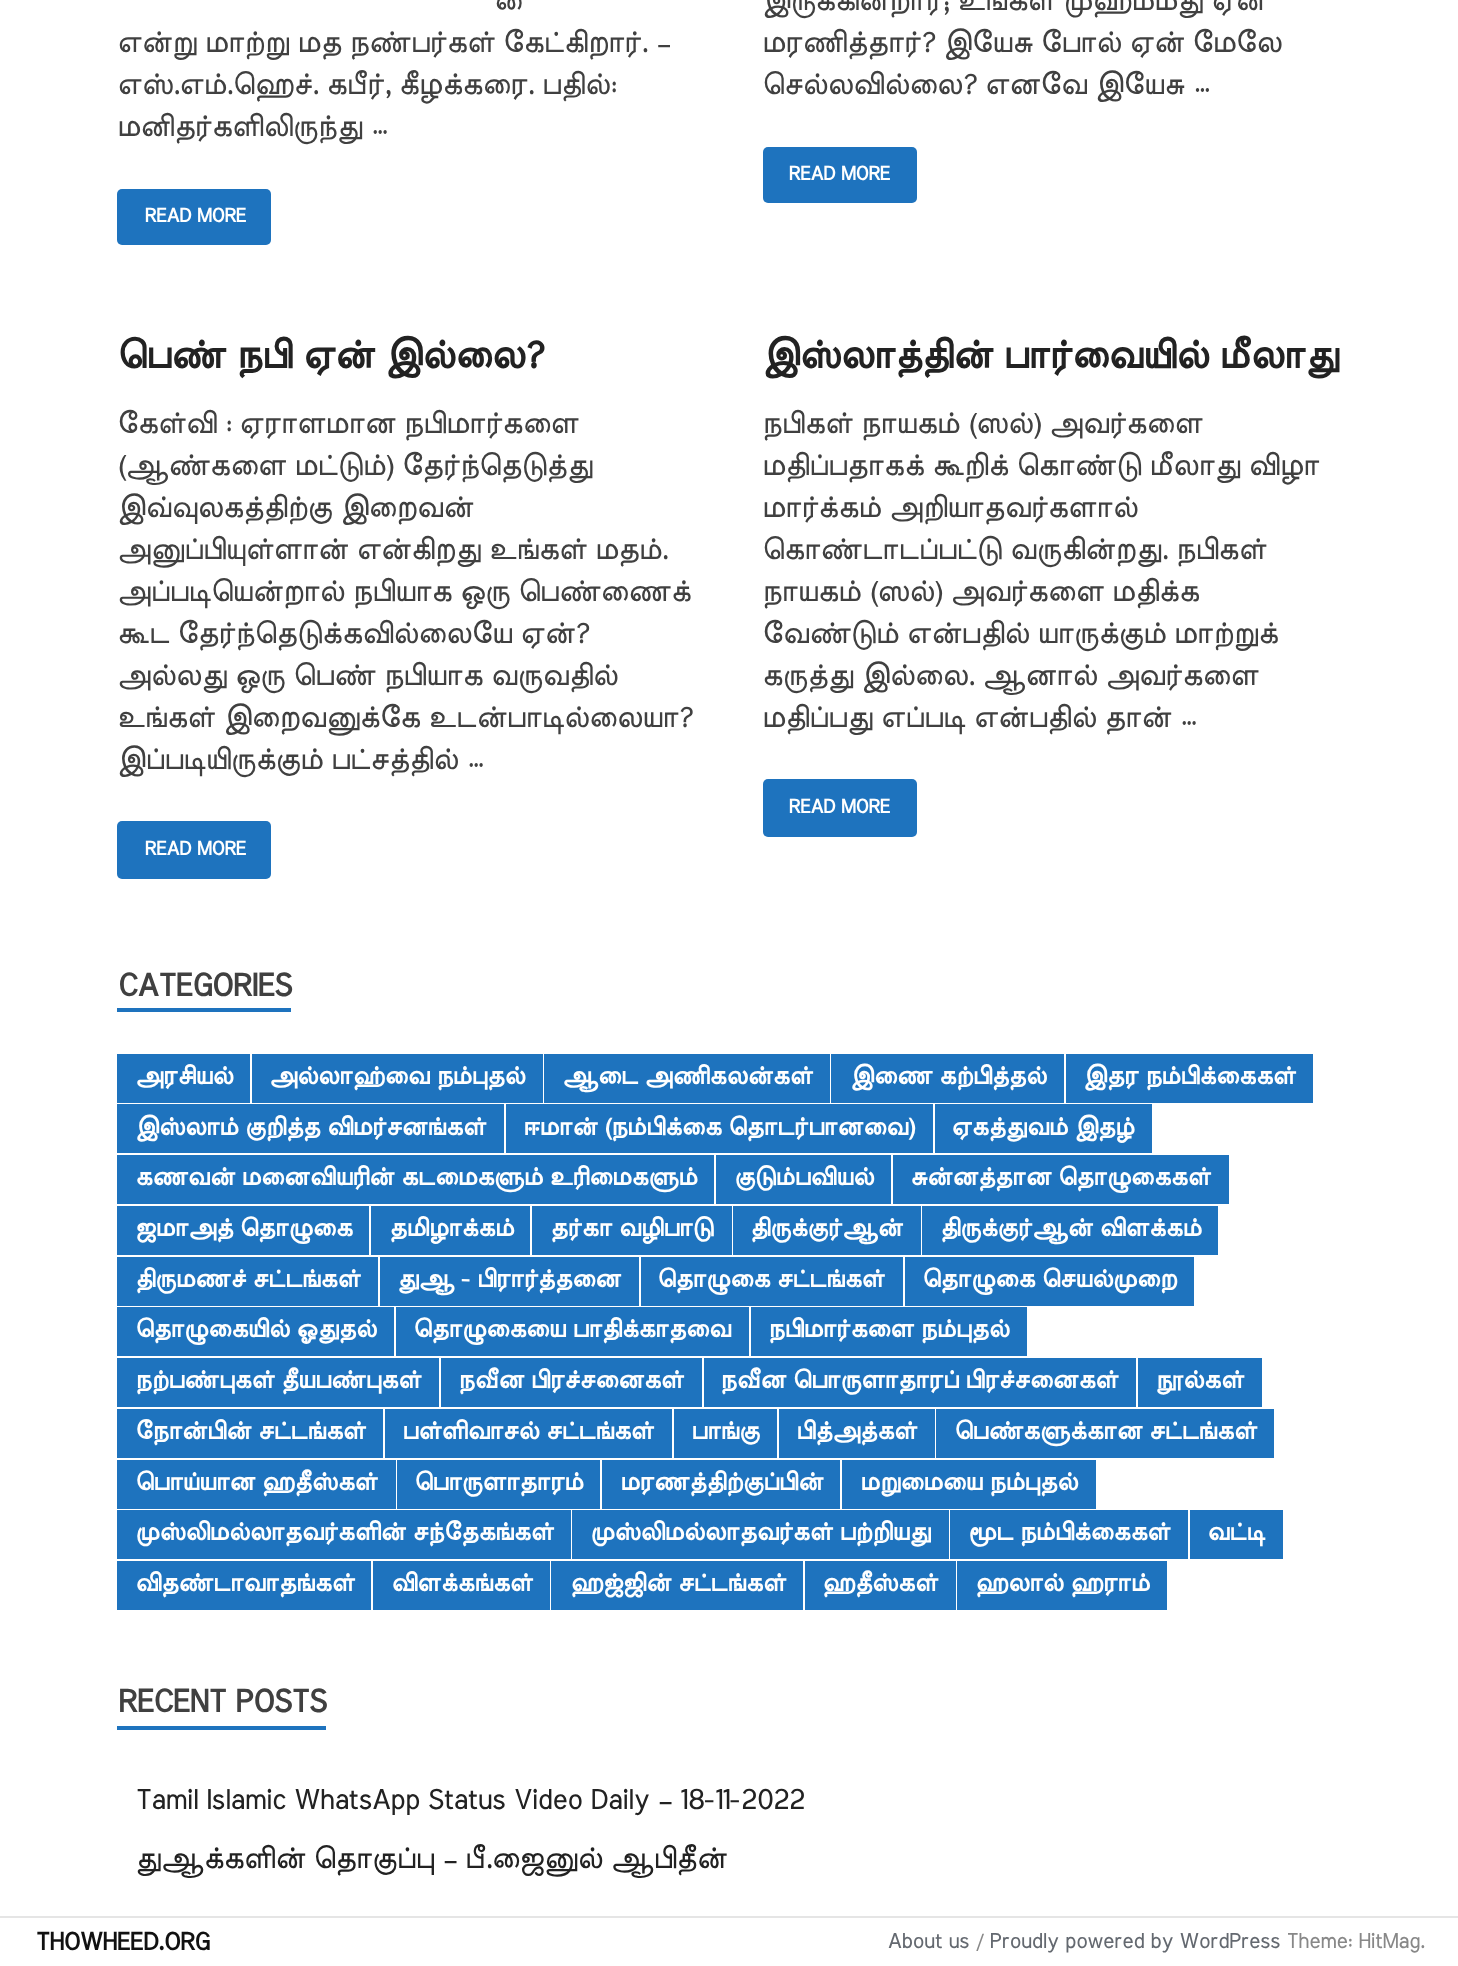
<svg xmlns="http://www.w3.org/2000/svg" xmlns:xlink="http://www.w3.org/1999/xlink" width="1458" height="1966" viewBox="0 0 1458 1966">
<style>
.cls-1{font:28px Meera Inimai;fill:#404040}
.cls-2{font:bold 19.25px Meera Inimai;fill:#ffffff}
.cls-3{font:bold 36.75px Meera Inimai;fill:#222222}
.cls-4{font:bold 31.5px Meera Inimai;fill:#404040}
.cls-5{font:bold 23.3px Meera Inimai;fill:#ffffff}
.cls-6{font:28px Meera Inimai;fill:#222222}
.cls-7{font:bold 24.5px Meera Inimai;fill:#111111}
.cls-8{font:21px Meera Inimai;fill:#646970}
.cls-9{font:21px Meera Inimai;fill:#888888}
</style>
<rect width="100%" height="100%" fill="#ffffff"/>
<rect fill="#1e73be" x="117" y="189" width="154" height="56" rx="5"/>
<rect fill="#1e73be" x="763" y="147" width="154" height="56" rx="5"/>
<rect fill="#1e73be" x="117" y="821" width="154" height="58" rx="5"/>
<rect fill="#1e73be" x="763" y="779" width="154" height="58" rx="5"/>
<rect fill="#1e73be" x="117" y="1008" width="174" height="4"/>
<rect fill="#1e73be" x="117" y="1054" width="133" height="49"/>
<rect fill="#1e73be" x="252" y="1054" width="291" height="49"/>
<rect fill="#1e73be" x="544" y="1054" width="286" height="49"/>
<rect fill="#1e73be" x="831" y="1054" width="233" height="49"/>
<rect fill="#1e73be" x="1066" y="1054" width="247" height="49"/>
<rect fill="#1e73be" x="117" y="1104" width="387" height="49"/>
<rect fill="#1e73be" x="506" y="1104" width="427" height="49"/>
<rect fill="#1e73be" x="935" y="1104" width="217" height="49"/>
<rect fill="#1e73be" x="117" y="1155" width="597" height="49"/>
<rect fill="#1e73be" x="716" y="1155" width="175" height="49"/>
<rect fill="#1e73be" x="893" y="1155" width="336" height="49"/>
<rect fill="#1e73be" x="117" y="1206" width="252" height="49"/>
<rect fill="#1e73be" x="371" y="1206" width="159" height="49"/>
<rect fill="#1e73be" x="532" y="1206" width="200" height="49"/>
<rect fill="#1e73be" x="733" y="1206" width="188" height="49"/>
<rect fill="#1e73be" x="922" y="1206" width="296" height="49"/>
<rect fill="#1e73be" x="117" y="1257" width="261" height="49"/>
<rect fill="#1e73be" x="380" y="1257" width="259" height="49"/>
<rect fill="#1e73be" x="641" y="1257" width="262" height="49"/>
<rect fill="#1e73be" x="905" y="1257" width="289" height="49"/>
<rect fill="#1e73be" x="117" y="1307" width="277" height="49"/>
<rect fill="#1e73be" x="396" y="1307" width="353" height="49"/>
<rect fill="#1e73be" x="751" y="1307" width="276" height="49"/>
<rect fill="#1e73be" x="117" y="1358" width="322" height="49"/>
<rect fill="#1e73be" x="441" y="1358" width="261" height="49"/>
<rect fill="#1e73be" x="704" y="1358" width="432" height="49"/>
<rect fill="#1e73be" x="1138" y="1358" width="124" height="49"/>
<rect fill="#1e73be" x="117" y="1409" width="266" height="49"/>
<rect fill="#1e73be" x="385" y="1409" width="287" height="49"/>
<rect fill="#1e73be" x="674" y="1409" width="103" height="49"/>
<rect fill="#1e73be" x="779" y="1409" width="156" height="49"/>
<rect fill="#1e73be" x="936" y="1409" width="338" height="49"/>
<rect fill="#1e73be" x="117" y="1460" width="279" height="49"/>
<rect fill="#1e73be" x="397" y="1460" width="203" height="49"/>
<rect fill="#1e73be" x="602" y="1460" width="238" height="49"/>
<rect fill="#1e73be" x="842" y="1460" width="254" height="49"/>
<rect fill="#1e73be" x="117" y="1510" width="454" height="49"/>
<rect fill="#1e73be" x="572" y="1510" width="377" height="49"/>
<rect fill="#1e73be" x="950" y="1510" width="238" height="49"/>
<rect fill="#1e73be" x="1190" y="1510" width="93" height="49"/>
<rect fill="#1e73be" x="117" y="1561" width="254" height="49"/>
<rect fill="#1e73be" x="373" y="1561" width="177" height="49"/>
<rect fill="#1e73be" x="551" y="1561" width="252" height="49"/>
<rect fill="#1e73be" x="805" y="1561" width="151" height="49"/>
<rect fill="#1e73be" x="957" y="1561" width="210" height="49"/>
<rect fill="#1e73be" x="117" y="1726" width="209" height="4"/>
<rect fill="#000000" fill-opacity="0.1" x="0" y="1916" width="1458" height="2"/>
<text class="cls-1" x="494" y="10">ை</text>
<text class="cls-1"><tspan x="117" y="52">என்று மாற்று மத நண்பர்கள் கேட்கிறார். –</tspan><tspan x="117" y="94">எஸ்.எம்.ஹெச். கபீர், கீழக்கரை. பதில்:</tspan><tspan x="117" y="136">மனிதர்களிலிருந்து …</tspan></text>
<text class="cls-2" x="144" y="222">READ MORE</text>
<text class="cls-1"><tspan x="762" y="10">இருக்கின்றார்; உங்கள் முஹம்மது ஏன்</tspan><tspan x="762" y="52">மரணித்தார்? இயேசு போல் ஏன் மேலே</tspan><tspan x="762" y="94">செல்லவில்லை? எனவே இயேசு …</tspan></text>
<text class="cls-2" x="788" y="180">READ MORE</text>
<text class="cls-3" x="117" y="368">பெண் நபி ஏன் இல்லை?</text>
<text class="cls-1"><tspan x="117" y="433">கேள்வி : ஏராளமான நபிமார்களை</tspan><tspan x="117" y="475">(ஆண்களை மட்டும்) தேர்ந்தெடுத்து</tspan><tspan x="117" y="517">இவ்வுலகத்திற்கு இறைவன்</tspan><tspan x="117" y="559">அனுப்பியுள்ளான் என்கிறது உங்கள் மதம்.</tspan><tspan x="117" y="601">அப்படியென்றால் நபியாக ஒரு பெண்ணைக்</tspan><tspan x="117" y="643">கூட தேர்ந்தெடுக்கவில்லையே ஏன்?</tspan><tspan x="117" y="685">அல்லது ஒரு பெண் நபியாக வருவதில்</tspan><tspan x="117" y="727">உங்கள் இறைவனுக்கே உடன்பாடில்லையா?</tspan><tspan x="117" y="769">இப்படியிருக்கும் பட்சத்தில் …</tspan></text>
<text class="cls-2" x="144" y="855">READ MORE</text>
<text class="cls-3" x="762" y="368">இஸ்லாத்தின் பார்வையில் மீலாது</text>
<text class="cls-1"><tspan x="762" y="433">நபிகள் நாயகம் (ஸல்) அவர்களை</tspan><tspan x="762" y="475">மதிப்பதாகக் கூறிக் கொண்டு மீலாது விழா</tspan><tspan x="762" y="517">மார்க்கம் அறியாதவர்களால்</tspan><tspan x="762" y="559">கொண்டாடப்பட்டு வருகின்றது. நபிகள்</tspan><tspan x="762" y="601">நாயகம் (ஸல்) அவர்களை மதிக்க</tspan><tspan x="762" y="643">வேண்டும் என்பதில் யாருக்கும் மாற்றுக்</tspan><tspan x="762" y="685">கருத்து இல்லை. ஆனால் அவர்களை</tspan><tspan x="762" y="727">மதிப்பது எப்படி என்பதில் தான் …</tspan></text>
<text class="cls-2" x="788" y="813">READ MORE</text>
<text class="cls-4" x="117" y="996">CATEGORIES</text>
<text class="cls-5" x="135" y="1084">அரசியல்</text>
<text class="cls-5" x="269" y="1084">அல்லாஹ்வை நம்புதல்</text>
<text class="cls-5" x="562" y="1084">ஆடை அணிகலன்கள்</text>
<text class="cls-5" x="850" y="1084">இணை கற்பித்தல்</text>
<text class="cls-5" x="1083" y="1084">இதர நம்பிக்கைகள்</text>
<text class="cls-5" x="135" y="1135">இஸ்லாம் குறித்த விமர்சனங்கள்</text>
<text class="cls-5" x="523" y="1135">ஈமான் (நம்பிக்கை தொடர்பானவை)</text>
<text class="cls-5" x="951" y="1135">ஏகத்துவம் இதழ்</text>
<text class="cls-5" x="135" y="1185">கணவன் மனைவியரின் கடமைகளும் உரிமைகளும்</text>
<text class="cls-5" x="734" y="1185">குடும்பவியல்</text>
<text class="cls-5" x="910" y="1185">சுன்னத்தான தொழுகைகள்</text>
<text class="cls-5" x="135" y="1236">ஜமாஅத் தொழுகை</text>
<text class="cls-5" x="389" y="1236">தமிழாக்கம்</text>
<text class="cls-5" x="550" y="1236">தர்கா வழிபாடு</text>
<text class="cls-5" x="750" y="1236">திருக்குர்ஆன்</text>
<text class="cls-5" x="940" y="1236">திருக்குர்ஆன் விளக்கம்</text>
<text class="cls-5" x="135" y="1287">திருமணச் சட்டங்கள்</text>
<text class="cls-5" x="397" y="1287">துஆ - பிரார்த்தனை</text>
<text class="cls-5" x="657" y="1287">தொழுகை சட்டங்கள்</text>
<text class="cls-5" x="922" y="1287">தொழுகை செயல்முறை</text>
<text class="cls-5" x="135" y="1337">தொழுகையில் ஓதுதல்</text>
<text class="cls-5" x="413" y="1337">தொழுகையை பாதிக்காதவை</text>
<text class="cls-5" x="768" y="1337">நபிமார்களை நம்புதல்</text>
<text class="cls-5" x="135" y="1388">நற்பண்புகள் தீயபண்புகள்</text>
<text class="cls-5" x="458" y="1388">நவீன பிரச்சனைகள்</text>
<text class="cls-5" x="720" y="1388">நவீன பொருளாதாரப் பிரச்சனைகள்</text>
<text class="cls-5" x="1155" y="1388">நூல்கள்</text>
<text class="cls-5" x="135" y="1439">நோன்பின் சட்டங்கள்</text>
<text class="cls-5" x="402" y="1439">பள்ளிவாசல் சட்டங்கள்</text>
<text class="cls-5" x="691" y="1439">பாங்கு</text>
<text class="cls-5" x="796" y="1439">பித்அத்கள்</text>
<text class="cls-5" x="954" y="1439">பெண்களுக்கான சட்டங்கள்</text>
<text class="cls-5" x="135" y="1490">பொய்யான ஹதீஸ்கள்</text>
<text class="cls-5" x="414" y="1490">பொருளாதாரம்</text>
<text class="cls-5" x="620" y="1490">மரணத்திற்குப்பின்</text>
<text class="cls-5" x="860" y="1490">மறுமையை நம்புதல்</text>
<text class="cls-5" x="135" y="1540">முஸ்லிமல்லாதவர்களின் சந்தேகங்கள்</text>
<text class="cls-5" x="590" y="1540">முஸ்லிமல்லாதவர்கள் பற்றியது</text>
<text class="cls-5" x="968" y="1540">மூட நம்பிக்கைகள்</text>
<text class="cls-5" x="1207" y="1540">வட்டி</text>
<text class="cls-5" x="135" y="1591">விதண்டாவாதங்கள்</text>
<text class="cls-5" x="391" y="1591">விளக்கங்கள்</text>
<text class="cls-5" x="570" y="1591">ஹஜ்ஜின் சட்டங்கள்</text>
<text class="cls-5" x="822" y="1591">ஹதீஸ்கள்</text>
<text class="cls-5" x="975" y="1591">ஹலால் ஹராம்</text>
<text class="cls-4" x="117" y="1712">RECENT POSTS</text>
<text class="cls-6" x="135" y="1809">Tamil Islamic WhatsApp Status Video Daily – 18-11-2022</text>
<text class="cls-6" x="135" y="1868">துஆக்களின் தொகுப்பு – பீ.ஜைனுல் ஆபிதீன்</text>
<text class="cls-7" x="35" y="1950">THOWHEED.ORG</text>
<text class="cls-8" x="887" y="1948">About us</text>
<text class="cls-9" x="975" y="1948">/</text>
<text class="cls-8" x="989" y="1948">Proudly powered by WordPress</text>
<text class="cls-9" x="1286" y="1948">Theme: HitMag.</text>
</svg>
